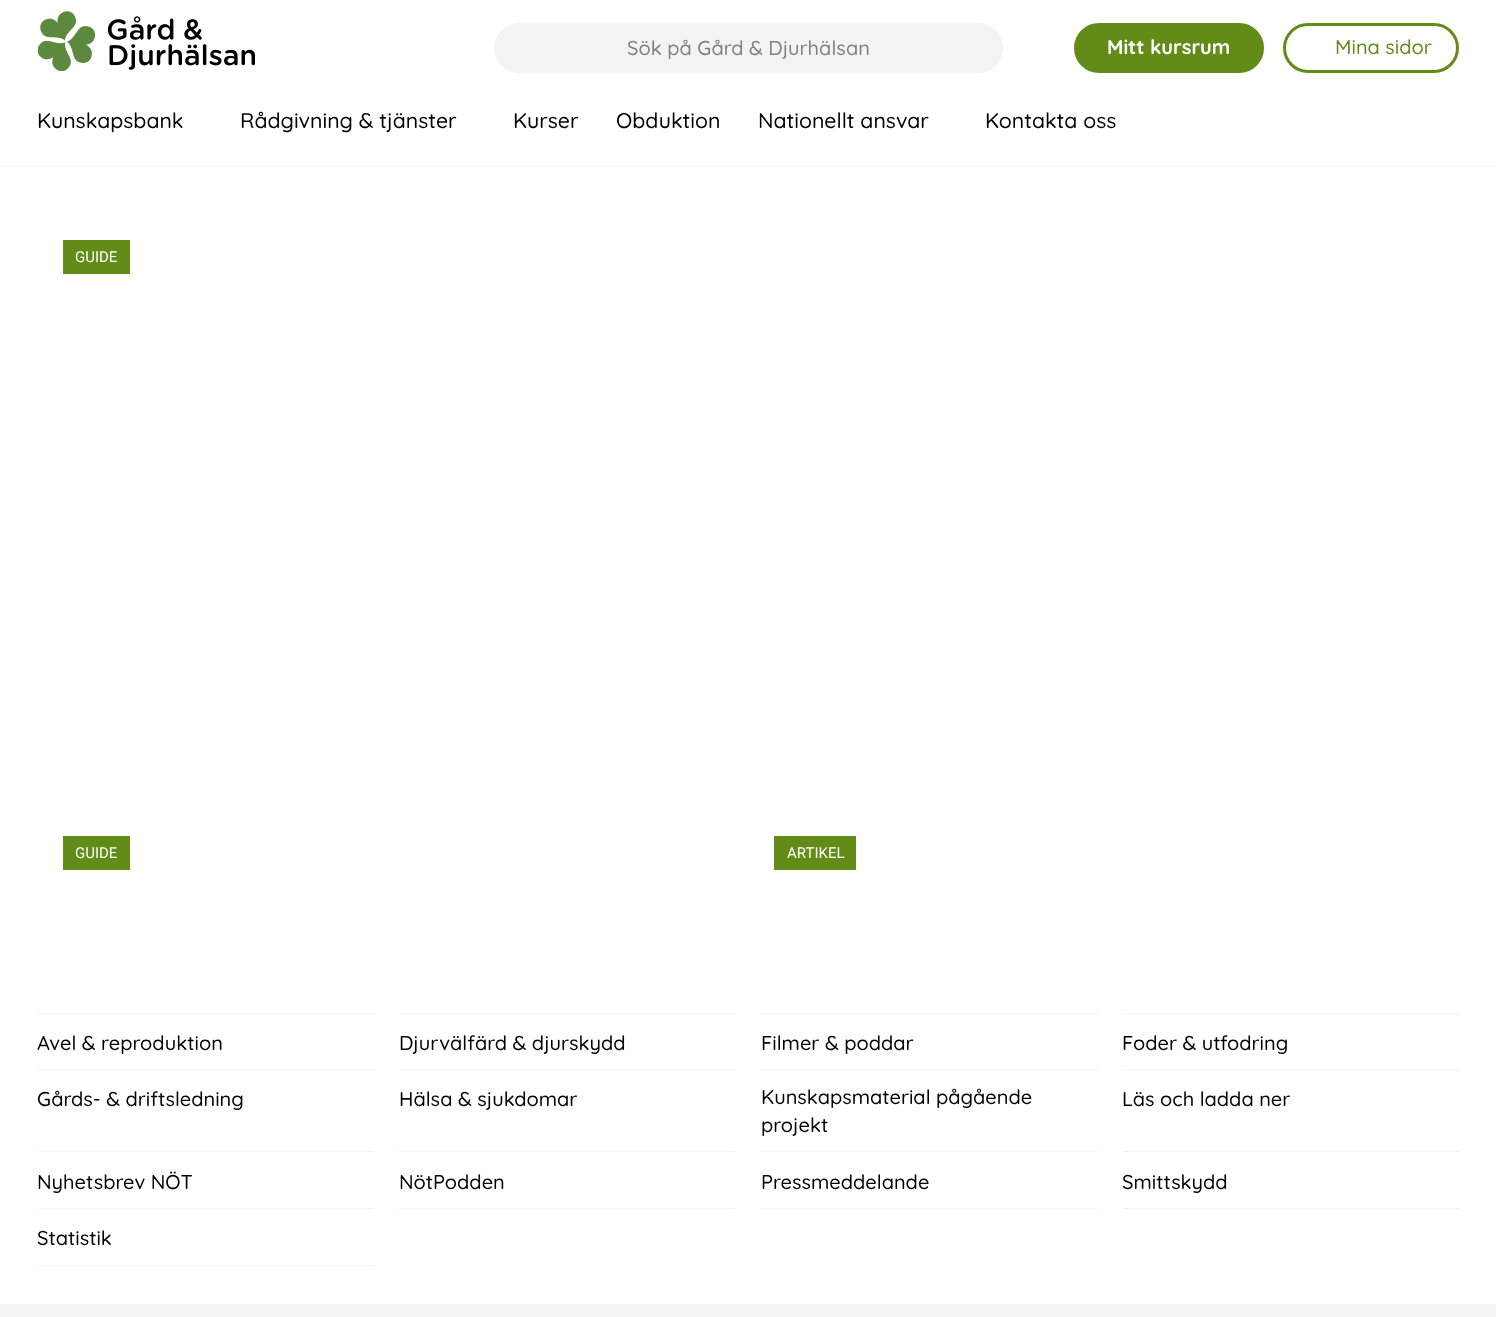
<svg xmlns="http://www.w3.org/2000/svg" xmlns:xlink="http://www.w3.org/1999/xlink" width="1496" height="1317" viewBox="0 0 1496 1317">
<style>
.cls-1{font:500 20px Quicksand;fill:#808182}
.cls-2{font:bold 20px Quicksand;fill:#ffffff}
.cls-3{font:500 20px Quicksand;fill:#638b18}
.cls-4{font:500 21.25px Quicksand;fill:#000000}
.cls-5{font:15px Roboto;fill:#ffffff}
.cls-6{font:500 20px Quicksand;fill:#000000}
</style>
<rect width="100%" height="100%" fill="#f1f3f4"/>
<rect fill="#ffffff" x="0" y="0" width="1496" height="1304"/>
<rect fill="#f1f3f4" x="0" y="166" width="1496" height="1"/>
<image xlink:href="image0.png" x="38" y="11" width="217" height="60"/>
<rect fill="#f1f3f4" x="494" y="23" width="509" height="50" rx="25"/>
<rect fill="#638b18" stroke="#638b18" stroke-width="3" x="1075.5" y="24.5" width="187" height="47" rx="23.5"/>
<rect fill="none" stroke="#638b18" stroke-width="3" x="1284.5" y="24.5" width="173" height="47" rx="23.5"/>
<rect fill="#638b18" x="63" y="240" width="67" height="34"/>
<rect fill="#638b18" x="63" y="836" width="67" height="34"/>
<rect fill="#638b18" x="774" y="836" width="82" height="34"/>
<rect fill="#f1f3f4" x="38" y="1013" width="336" height="1"/>
<rect fill="#f1f3f4" x="38" y="1069" width="336" height="1"/>
<rect fill="#f1f3f4" x="399" y="1013" width="336" height="1"/>
<rect fill="#f1f3f4" x="399" y="1069" width="336" height="1"/>
<rect fill="#f1f3f4" x="760" y="1013" width="338" height="1"/>
<rect fill="#f1f3f4" x="760" y="1069" width="338" height="1"/>
<rect fill="#f1f3f4" x="1123" y="1013" width="336" height="1"/>
<rect fill="#f1f3f4" x="1123" y="1069" width="336" height="1"/>
<rect fill="#f1f3f4" x="38" y="1151" width="336" height="1"/>
<rect fill="#f1f3f4" x="399" y="1151" width="336" height="1"/>
<rect fill="#f1f3f4" x="760" y="1151" width="338" height="1"/>
<rect fill="#f1f3f4" x="1123" y="1151" width="336" height="1"/>
<rect fill="#f1f3f4" x="38" y="1208" width="336" height="1"/>
<rect fill="#f1f3f4" x="399" y="1208" width="336" height="1"/>
<rect fill="#f1f3f4" x="760" y="1208" width="338" height="1"/>
<rect fill="#f1f3f4" x="1123" y="1208" width="336" height="1"/>
<rect fill="#f1f3f4" x="38" y="1265" width="336" height="1"/>
<text class="cls-1" x="627" y="55">Sök på Gård &amp; Djurhälsan</text>
<text class="cls-2" x="1107" y="54">Mitt kursrum</text>
<text class="cls-3" x="1335" y="54">Mina sidor</text>
<text class="cls-4" x="37" y="128">Kunskapsbank</text>
<text class="cls-4" x="240" y="128">Rådgivning &amp; tjänster</text>
<text class="cls-4" x="513" y="128">Kurser</text>
<text class="cls-4" x="616" y="128">Obduktion</text>
<text class="cls-4" x="758" y="128">Nationellt ansvar</text>
<text class="cls-4" x="985" y="128">Kontakta oss</text>
<text class="cls-5" x="75" y="262">GUIDE</text>
<text class="cls-5" x="75" y="858">GUIDE</text>
<text class="cls-5" x="787" y="858">ARTIKEL</text>
<text class="cls-6" x="37" y="1050">Avel &amp; reproduktion</text>
<text class="cls-6" x="399" y="1050">Djurvälfärd &amp; djurskydd</text>
<text class="cls-6" x="761" y="1050">Filmer &amp; poddar</text>
<text class="cls-6" x="1122" y="1050">Foder &amp; utfodring</text>
<text class="cls-6" x="37" y="1106">Gårds- &amp; driftsledning</text>
<text class="cls-6" x="399" y="1106">Hälsa &amp; sjukdomar</text>
<text class="cls-6"><tspan x="761" y="1104">Kunskapsmaterial pågående</tspan><tspan x="761" y="1132">projekt</tspan></text>
<text class="cls-6" x="1122" y="1106">Läs och ladda ner</text>
<text class="cls-6" x="37" y="1189">Nyhetsbrev NÖT</text>
<text class="cls-6" x="399" y="1189">NötPodden</text>
<text class="cls-6" x="761" y="1189">Pressmeddelande</text>
<text class="cls-6" x="1122" y="1189">Smittskydd</text>
<text class="cls-6" x="37" y="1245">Statistik</text>
</svg>
